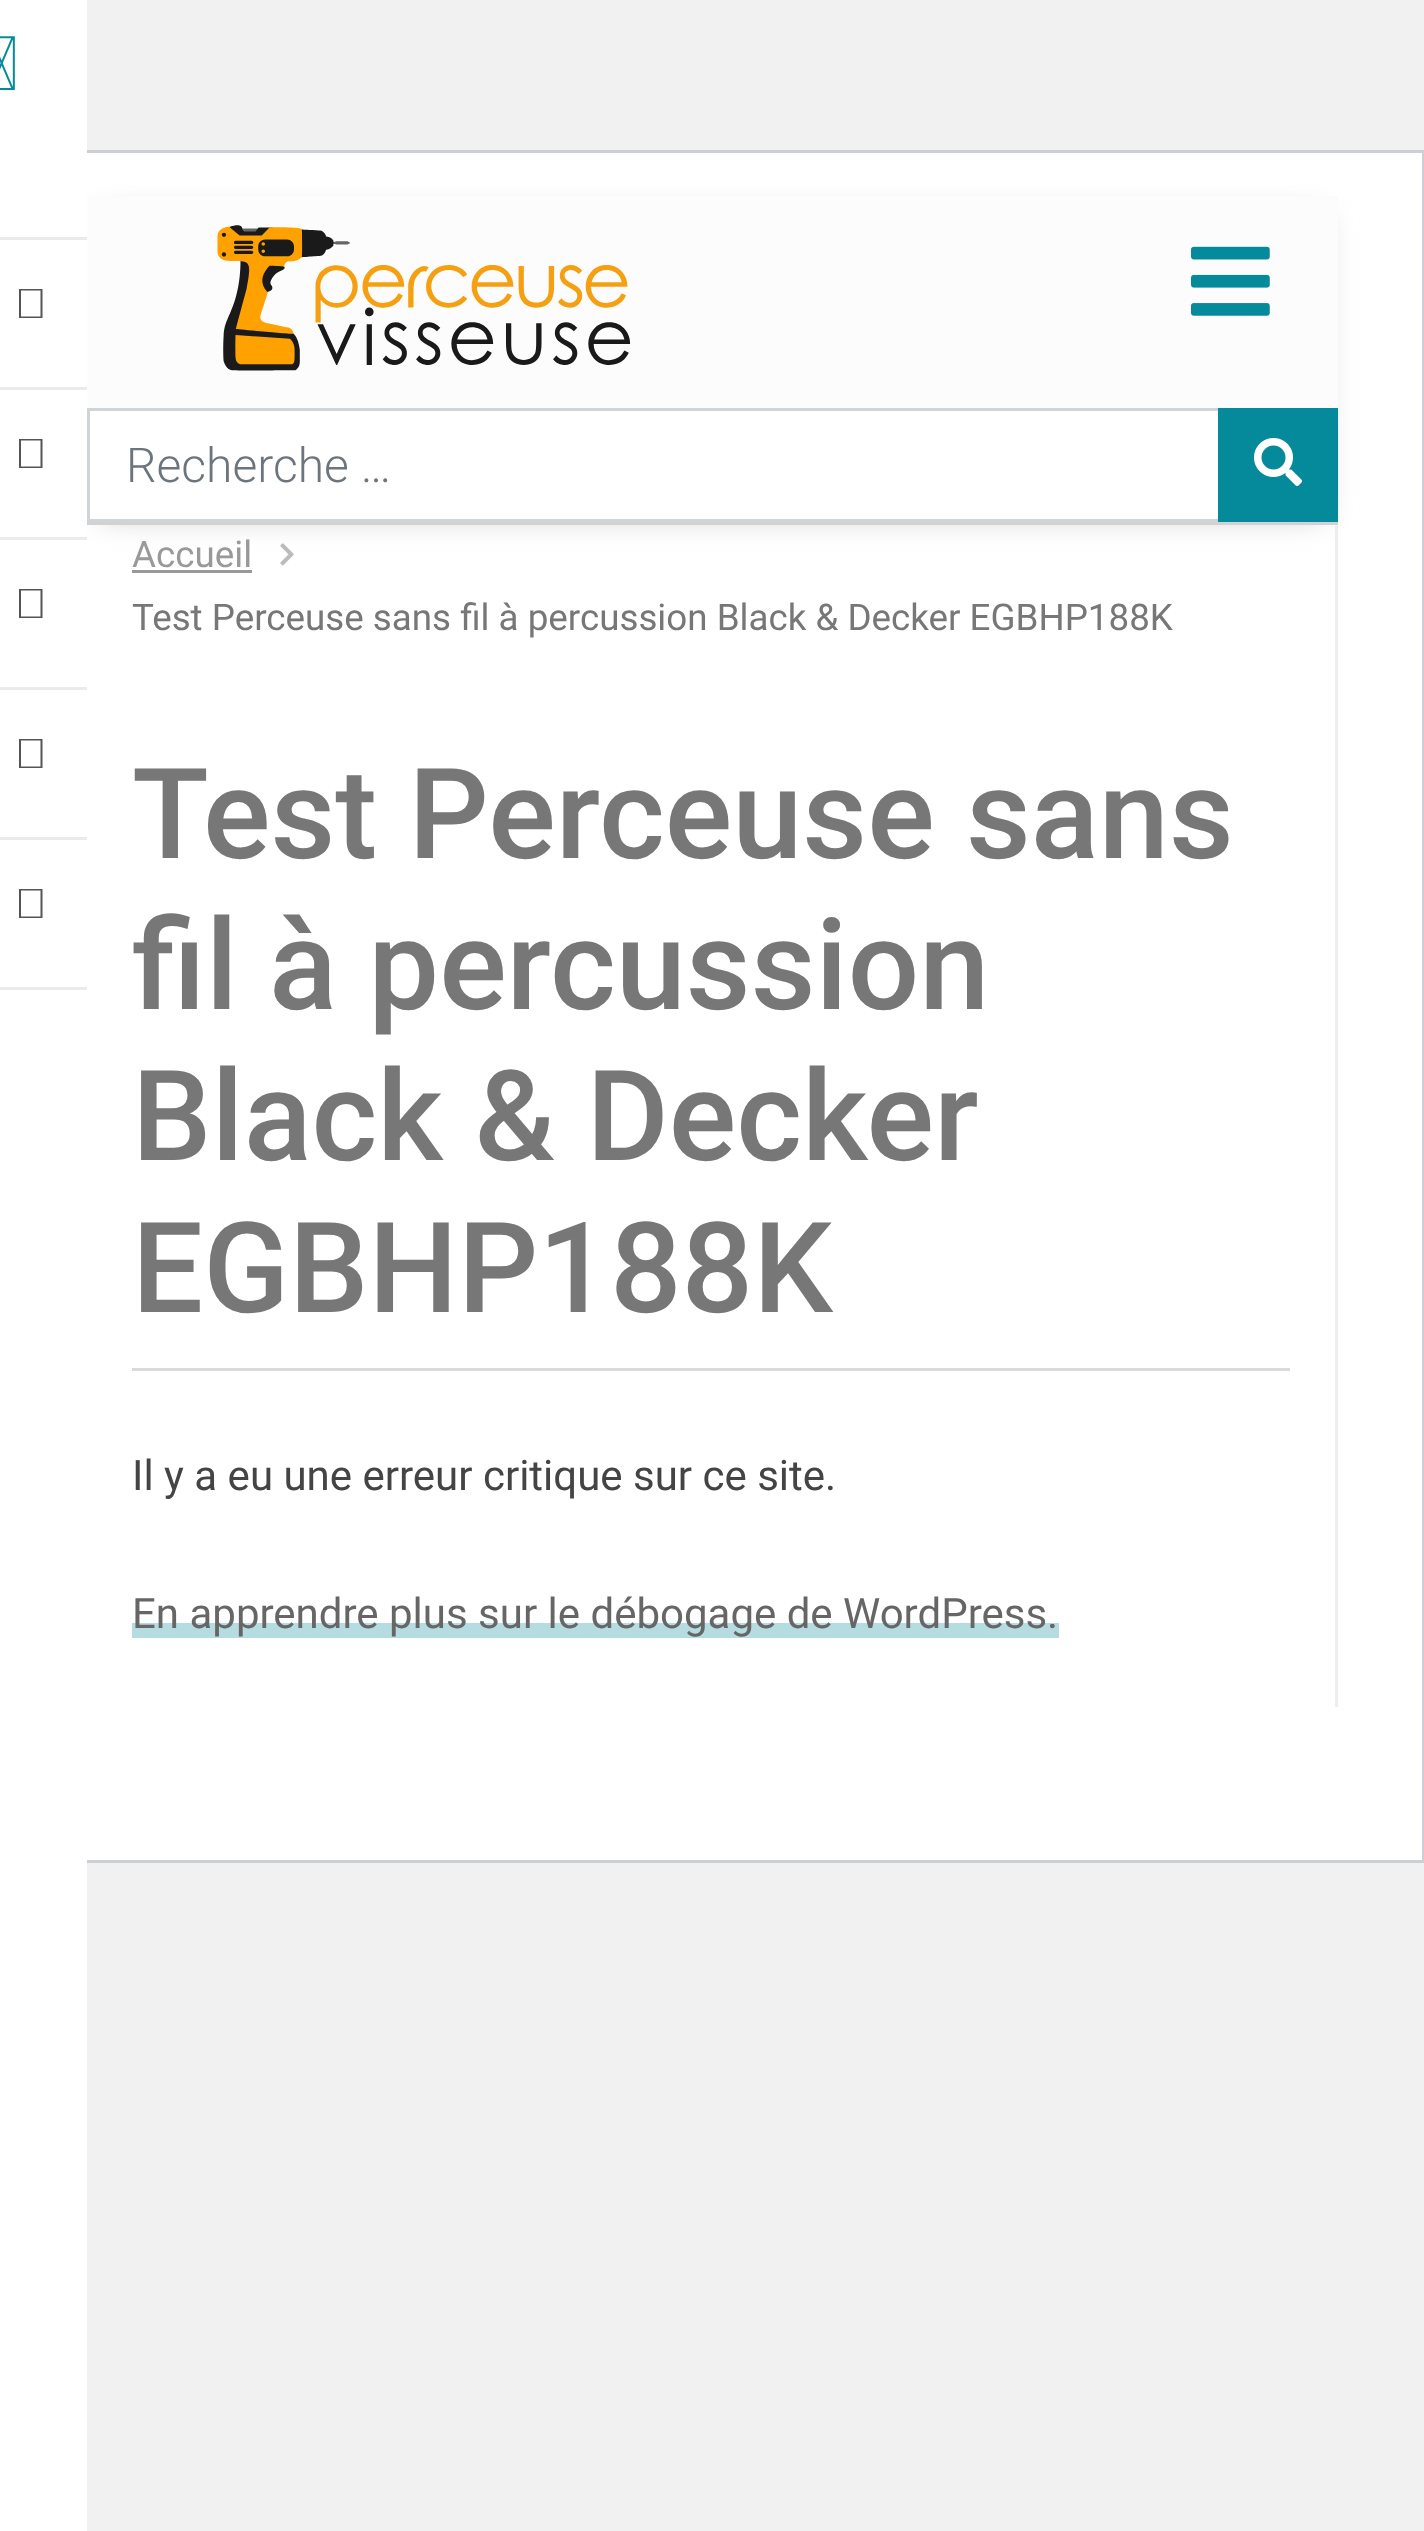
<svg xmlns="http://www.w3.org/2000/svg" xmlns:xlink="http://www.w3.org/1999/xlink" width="1424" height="2531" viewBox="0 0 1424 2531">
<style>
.cls-1{font:300 48px Roboto;fill:#6c757d}
.cls-2{font:36.75px Roboto;fill:#999999}
.cls-3{font:36.75px Roboto;fill:#777777}
.cls-4{font:500 126px Roboto;fill:#777777}
.cls-5{font:42px Roboto;fill:#444444}
.cls-6{font:42px Roboto;fill:#666666}
</style>
<rect width="100%" height="100%" fill="#f1f1f1"/>
<rect fill="#ffffff" x="87" y="153" width="1335" height="1707"/>
<rect fill="none" stroke="#ccd0d4" stroke-width="3" x="1.5" y="151.5" width="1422" height="1710"/>
<rect fill="#c2c2c2" filter="blur(15px)" x="102" y="216" width="1221" height="300"/>
<rect fill="#fcfcfc" x="87" y="196" width="1251" height="212"/>
<rect fill="#d2d2d2" x="87" y="522" width="1251" height="3"/>
<rect fill="#ffffff" x="0" y="0" width="87" height="2531"/>
<rect fill="#ebebeb" x="0" y="237" width="87" height="3"/>
<rect fill="#ebebeb" x="0" y="387" width="87" height="3"/>
<path fill="#555555" d="M19 289H42.5V318H19ZM21 290.5V316.5H40.5V290.5Z"/>
<rect fill="#ebebeb" x="0" y="537" width="87" height="3"/>
<path fill="#555555" d="M19 439H42.5V468H19ZM21 440.5V466.5H40.5V440.5Z"/>
<rect fill="#ebebeb" x="0" y="687" width="87" height="3"/>
<path fill="#555555" d="M19 589H42.5V618H19ZM21 590.5V616.5H40.5V590.5Z"/>
<rect fill="#ebebeb" x="0" y="837" width="87" height="3"/>
<path fill="#555555" d="M19 739H42.5V768H19ZM21 740.5V766.5H40.5V740.5Z"/>
<rect fill="#ebebeb" x="0" y="987" width="87" height="3"/>
<path fill="#555555" d="M19 889H42.5V918H19ZM21 890.5V916.5H40.5V890.5Z"/>
<image xlink:href="image0.png" x="0" y="36" width="15" height="54"/>
<image xlink:href="image1.png" x="217" y="225" width="414" height="146"/>
<image xlink:href="image2.png" x="1191" y="246" width="79" height="70"/>
<rect fill="#ffffff" stroke="#ced4da" stroke-width="3" x="88.5" y="409.5" width="1131" height="111"/>
<rect fill="#048a9a" x="1218" y="408" width="120" height="114"/>
<image xlink:href="image3.png" x="1254" y="438" width="48" height="48"/>
<rect fill="#ededed" x="1335" y="525" width="3" height="1182"/>
<rect fill="#999999" x="132" y="570" width="120" height="3"/>
<image xlink:href="image4.png" x="280" y="543" width="14" height="23"/>
<rect fill="#dadada" x="132" y="1368" width="1158" height="3"/>
<rect fill="#b4dce1" x="132" y="1623" width="927" height="15"/>
<text class="cls-1" x="126" y="482">Recherche …</text>
<text class="cls-2" x="132" y="567">Accueil</text>
<text class="cls-3" x="132" y="630">Test Perceuse sans fil à percussion Black &amp; Decker EGBHP188K</text>
<text class="cls-4"><tspan x="132" y="858">Test Perceuse sans</tspan><tspan x="132" y="1009">fil à percussion</tspan><tspan x="132" y="1160">Black &amp; Decker</tspan><tspan x="132" y="1312">EGBHP188K</tspan></text>
<text class="cls-5" x="132" y="1490">Il y a eu une erreur critique sur ce site.</text>
<text class="cls-6" x="132" y="1628">En apprendre plus sur le débogage de WordPress.</text>
</svg>
